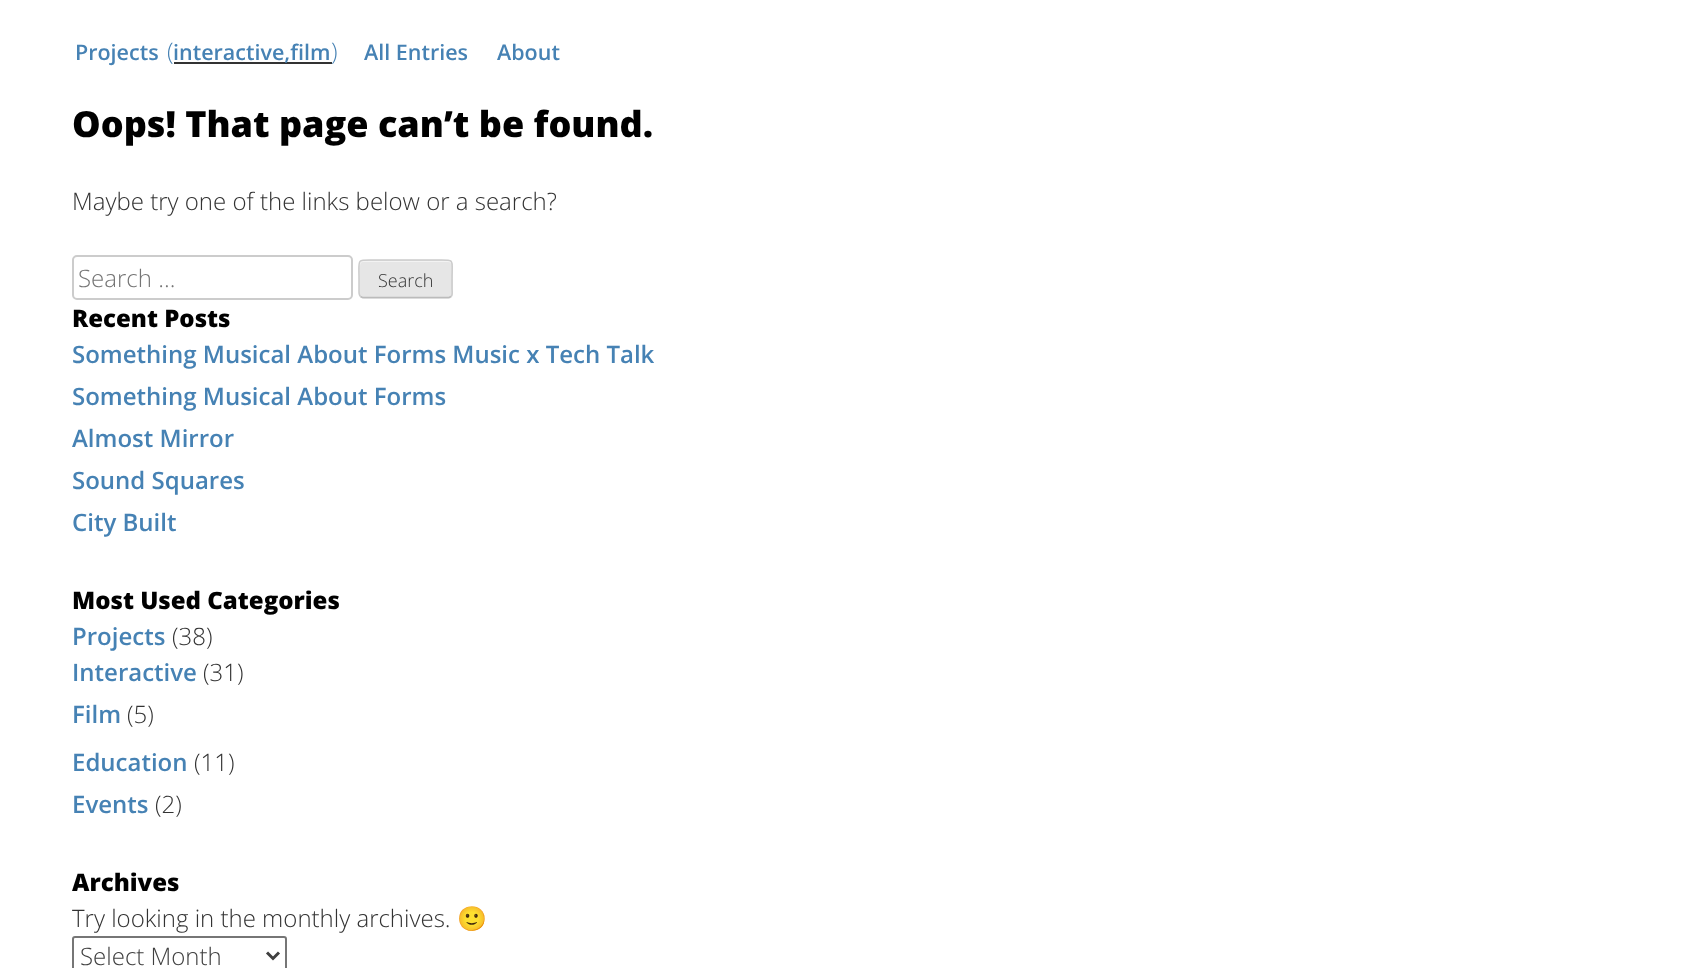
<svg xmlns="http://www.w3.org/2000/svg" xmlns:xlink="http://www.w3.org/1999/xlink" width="1696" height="968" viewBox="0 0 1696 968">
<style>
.cls-1{font:600 21.5px Open Sans;fill:#4682b4}
.cls-2{font:300 24px Open Sans;fill:#4682b4}
.cls-3{font:800 36px Open Sans;fill:#000000}
.cls-4{font:300 24px Open Sans;fill:#333333}
.cls-5{font:300 24px Open Sans;fill:#757575}
.cls-6{font:300 18px Open Sans;fill:#333333}
.cls-7{font:800 24px Open Sans;fill:#000000}
.cls-8{font:600 24px Open Sans;fill:#4682b4}
.cls-9{font:24px Noto Color Emoji;fill:#333333}
.cls-10{font:300 24px Open Sans;fill:#404040}
</style>
<rect width="100%" height="100%" fill="#ffffff"/>
<rect fill="#333333" x="174" y="62" width="158" height="2"/>
<rect fill="none" stroke="#cccccc" stroke-width="2" x="73" y="256" width="279" height="43" rx="4"/>
<rect fill="#e6e6e6" x="359" y="260" width="94" height="39" rx="5"/>
<path fill="#f3f3f3" d="M363 262H448C450 262 452 264 452 266V264C452 262 451 261 449 261H363C361 261 360 262 360 264V266C360 264 361 262 363 262Z"/>
<path fill="none" stroke="#bbbbbb" stroke-width="1.5" d="M451 296.5L449 297.5H362.5L360.5 296.5"/>
<path fill="none" stroke="#cccccc" stroke-width="1.5" d="M360.5 296.5C358.5 295 359 291 359 289V279C359 257.5 355.5 260 377 260H434C456 260 452 257.5 452 279V289C452 291 453 295 451 296.5"/>
<rect fill="none" stroke="#767676" stroke-width="2" x="73" y="937" width="213" height="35" rx="2"/>
<path fill="none" stroke="#404040" stroke-width="3" d="M267 952.5L273 958.5L279 952.5"/>
<text class="cls-1" x="75" y="60">Projects</text>
<text class="cls-2" x="167" y="60">(</text>
<text class="cls-1" x="173" y="60">interactive,film</text>
<text class="cls-2" x="331" y="60">)</text>
<text class="cls-1" x="364" y="60">All Entries</text>
<text class="cls-1" x="497" y="60">About</text>
<text class="cls-3" x="72" y="137">Oops! That page can’t be found.</text>
<text class="cls-4" x="72" y="210">Maybe try one of the links below or a search?</text>
<text class="cls-5" x="78" y="287">Search …</text>
<text class="cls-6" x="378" y="287">Search</text>
<text class="cls-7" x="72" y="327">Recent Posts</text>
<text class="cls-8"><tspan x="72" y="363">Something Musical About Forms Music x Tech Talk</tspan><tspan x="72" y="405">Something Musical About Forms</tspan><tspan x="72" y="447">Almost Mirror</tspan><tspan x="72" y="489">Sound Squares</tspan><tspan x="72" y="531">City Built</tspan></text>
<text class="cls-7" x="72" y="609">Most Used Categories</text>
<text class="cls-8" x="72" y="645">Projects</text>
<text class="cls-4" x="172" y="645">(38)</text>
<text class="cls-8" x="72" y="681">Interactive</text>
<text class="cls-4" x="203" y="681">(31)</text>
<text class="cls-8" x="72" y="723">Film</text>
<text class="cls-4" x="127" y="723">(5)</text>
<text class="cls-8" x="72" y="771">Education</text>
<text class="cls-4" x="194" y="771">(11)</text>
<text class="cls-8" x="72" y="813">Events</text>
<text class="cls-4" x="155" y="813">(2)</text>
<text class="cls-7" x="72" y="891">Archives</text>
<text class="cls-4" x="72" y="927">Try looking in the monthly archives.</text>
<text class="cls-9" x="457" y="927">🙂</text>
<text class="cls-10" x="80" y="965">Select Month</text>
</svg>
